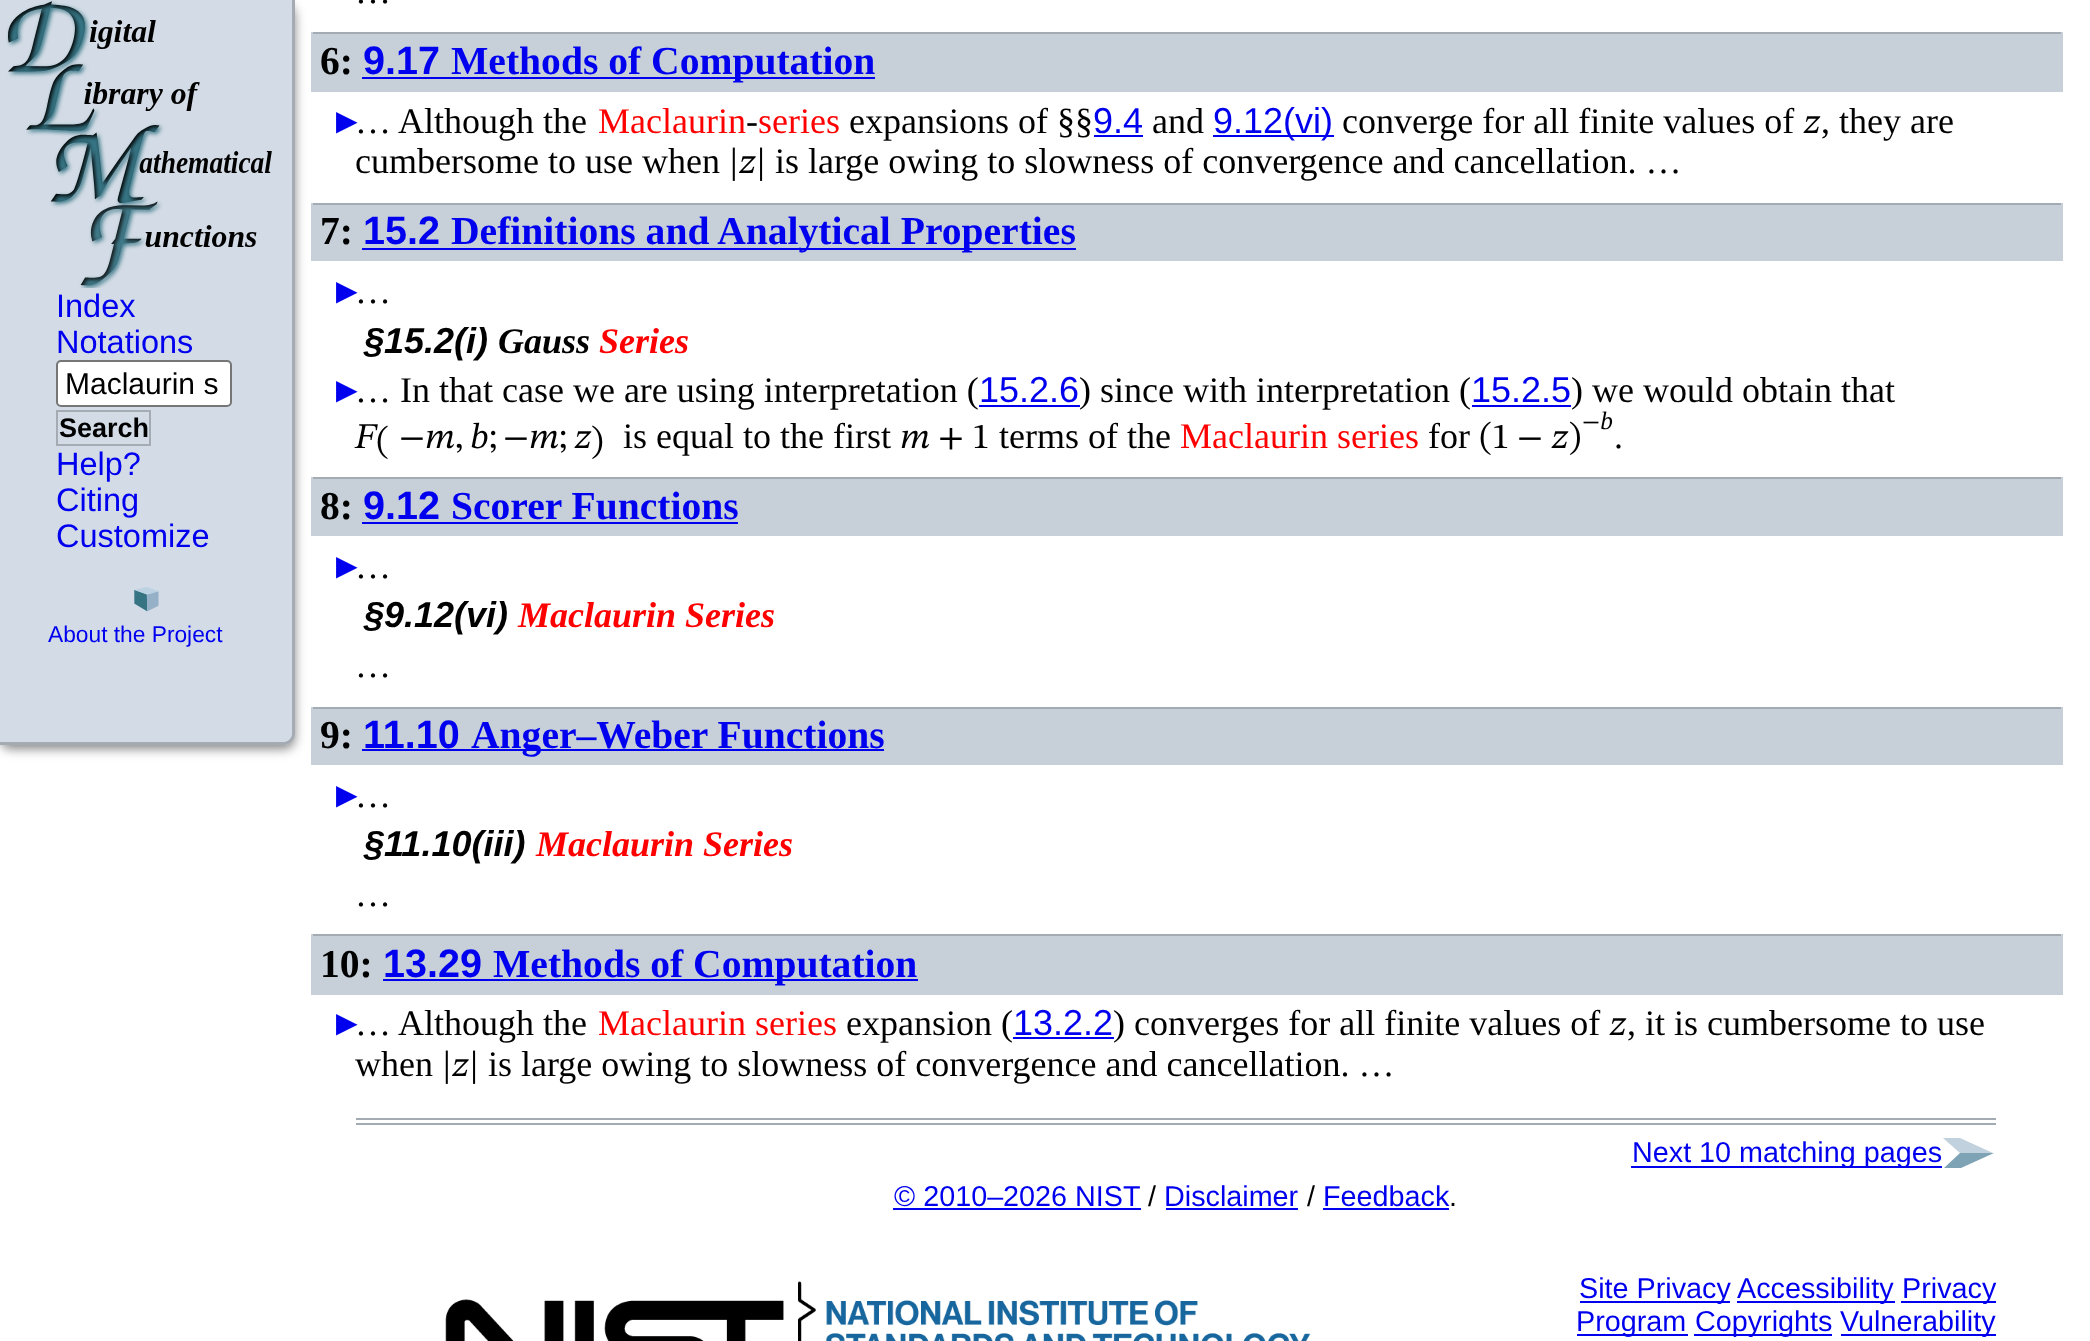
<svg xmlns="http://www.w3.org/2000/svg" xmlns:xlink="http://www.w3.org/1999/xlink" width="2090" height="1341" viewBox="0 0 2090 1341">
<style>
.cls-1{font:32.5px Liberation Sans;fill:#0000ee}
.cls-2{font:30px Liberation Sans;fill:#000000}
.cls-3{font:bold 27px Liberation Sans;fill:#000000}
.cls-4{font:22.75px Liberation Sans;fill:#0000ee}
.cls-5{font:36px Liberation Serif;fill:#000000}
.cls-6{font:bold 39.6px Liberation Serif;fill:#000000}
.cls-7{font:bold 39.6px Liberation Sans;fill:#0000ee}
.cls-8{font:bold 39.6px Liberation Serif;fill:#0000ee}
.cls-9{font:36px Liberation Serif;fill:#0000ee}
.cls-10{font:36px Liberation Serif;fill:#ff0000}
.cls-11{font:36px Liberation Sans;fill:#0000ee}
.cls-12{font:36px STIX Two Math;fill:#000000}
.cls-13{font:italic bold 36px Liberation Sans;fill:#000000}
.cls-14{font:italic bold 36px Liberation Serif;fill:#000000}
.cls-15{font:italic bold 36px Liberation Serif;fill:#ff0000}
.cls-16{font:25px STIX Two Math;fill:#000000}
.cls-17{font:28.75px Liberation Sans;fill:#0000ee}
.cls-18{font:28.75px Liberation Sans;fill:#000000}
</style>
<rect width="100%" height="100%" fill="#ffffff"/>
<rect fill="#a4abb2" x="311" y="32" width="1752" height="2"/>
<rect fill="#c7d0d9" x="311" y="32" width="2" height="60"/>
<rect fill="#a4abb2" x="311" y="203" width="1752" height="2"/>
<rect fill="#c7d0d9" x="311" y="203" width="2" height="58"/>
<rect fill="#a4abb2" x="311" y="477" width="1752" height="2"/>
<rect fill="#c7d0d9" x="311" y="477" width="2" height="59"/>
<rect fill="#a4abb2" x="311" y="707" width="1752" height="2"/>
<rect fill="#c7d0d9" x="311" y="707" width="2" height="58"/>
<rect fill="#888888" filter="blur(5.5px)" x="0" y="5" width="295" height="744" rx="11"/>
<path fill="#d3dce6" d="M0 0H295V734C295 740 290 745 284 745H0Z"/>
<path fill="#a4abb2" fill-rule="evenodd" d="M0 0H295V734C295 740 290 745 284 745H0ZM0 0H292V734C292 738 288 742 284 742H0Z"/>
<image xlink:href="image0.png" x="6" y="0" width="266" height="288"/>
<rect fill="#ffffff" stroke="#767676" stroke-width="2" x="57" y="361" width="174" height="45" rx="4"/>
<rect fill="none" stroke="#a4abb2" stroke-width="2" x="57" y="411" width="93" height="34"/>
<image xlink:href="image1.png" x="134" y="587" width="25" height="25"/>
<rect fill="#c7d0d9" x="313" y="34" width="1748" height="58"/>
<rect fill="#c7d0d9" x="2061" y="32" width="2" height="60"/>
<rect fill="#0000ee" x="362" y="77" width="513" height="2"/>
<rect fill="#0000ee" x="1094" y="135" width="49" height="2"/>
<rect fill="#0000ee" x="1213" y="135" width="121" height="2"/>
<rect fill="#c7d0d9" x="313" y="205" width="1748" height="56"/>
<rect fill="#c7d0d9" x="2061" y="203" width="2" height="58"/>
<rect fill="#0000ee" x="362" y="248" width="714" height="2"/>
<rect fill="#0000ee" x="979" y="405" width="101" height="2"/>
<rect fill="#0000ee" x="1472" y="405" width="99" height="2"/>
<rect fill="#c7d0d9" x="313" y="479" width="1748" height="57"/>
<rect fill="#c7d0d9" x="2061" y="477" width="2" height="59"/>
<rect fill="#0000ee" x="362" y="522" width="376" height="2"/>
<rect fill="#c7d0d9" x="313" y="709" width="1748" height="56"/>
<rect fill="#c7d0d9" x="2061" y="707" width="2" height="58"/>
<rect fill="#0000ee" x="362" y="749" width="522" height="2"/>
<rect fill="#c7d0d9" x="313" y="936" width="1748" height="59"/>
<rect fill="#a4abb2" x="311" y="934" width="1752" height="2"/>
<rect fill="#c7d0d9" x="2061" y="934" width="2" height="61"/>
<rect fill="#c7d0d9" x="311" y="934" width="2" height="61"/>
<rect fill="#0000ee" x="383" y="979" width="535" height="2"/>
<rect fill="#0000ee" x="1013" y="1037" width="101" height="2"/>
<rect fill="#a4abb2" x="356" y="1118" width="1640" height="2"/>
<rect fill="#a4abb2" x="356" y="1123" width="1640" height="2"/>
<rect fill="#0000ee" x="1631" y="1166" width="311" height="2"/>
<path fill="#c1d1dd" d="M1960 1138H1943L1960 1153H1993Z"/>
<path fill="#7ea3b4" d="M1961 1168H1944L1960 1153H1994Z"/>
<rect fill="#0000ee" x="893" y="1208" width="248" height="2"/>
<rect fill="#0000ee" x="1166" y="1208" width="132" height="2"/>
<rect fill="#0000ee" x="1323" y="1208" width="126" height="2"/>
<image xlink:href="image2.png" x="445" y="1281" width="866" height="60"/>
<rect fill="#0000ee" x="1580" y="1301" width="150" height="2"/>
<rect fill="#0000ee" x="1737" y="1301" width="158" height="2"/>
<rect fill="#0000ee" x="1901" y="1301" width="95" height="2"/>
<rect fill="#0000ee" x="1577" y="1334" width="111" height="2"/>
<rect fill="#0000ee" x="1694" y="1334" width="138" height="2"/>
<rect fill="#0000ee" x="1841" y="1334" width="155" height="2"/>
<text class="cls-1"><tspan x="56" y="317">Index</tspan><tspan x="56" y="353">Notations</tspan></text>
<text class="cls-2" x="65" y="394">Maclaurin s</text>
<text class="cls-3" x="59" y="437">Search</text>
<text class="cls-1"><tspan x="56" y="475">Help?</tspan><tspan x="56" y="511">Citing</tspan><tspan x="56" y="547">Customize</tspan></text>
<text class="cls-4" x="48" y="642">About the Project</text>
<text class="cls-5" x="355" y="3">…</text>
<text class="cls-6" x="320" y="74">6:</text>
<text class="cls-7" x="363" y="74">9.17</text>
<text class="cls-8" x="451" y="74">Methods of Computation</text>
<text class="cls-9" x="329" y="133">►</text>
<text class="cls-5" x="355" y="133">… Although the</text>
<text class="cls-10" x="598" y="133">Maclaurin</text>
<text class="cls-5" x="746" y="133">-</text>
<text class="cls-10" x="758" y="133">series</text>
<text class="cls-5" x="849" y="133">expansions of §§</text>
<text class="cls-11" x="1093" y="133">9.4</text>
<text class="cls-5" x="1152" y="133">and</text>
<text class="cls-11" x="1213" y="133">9.12(vi)</text>
<text class="cls-5" x="1342" y="133">converge for all finite values of</text>
<text class="cls-12" x="1803" y="133">𝑧</text>
<text class="cls-5" x="1821" y="133">, they are</text>
<text class="cls-5" x="355" y="173">cumbersome to use when</text>
<text class="cls-12" x="729" y="173">|𝑧|</text>
<text class="cls-5" x="775" y="173">is large owing to slowness of convergence and cancellation. …</text>
<text class="cls-6" x="320" y="244">7:</text>
<text class="cls-7" x="363" y="244">15.2</text>
<text class="cls-8" x="451" y="244">Definitions and Analytical Properties</text>
<text class="cls-9" x="329" y="303">►</text>
<text class="cls-5" x="355" y="303">…</text>
<text class="cls-13" x="364" y="353">§15.2(i)</text>
<text class="cls-14" x="498" y="353">Gauss</text>
<text class="cls-15" x="599" y="353">Series</text>
<text class="cls-9" x="329" y="402">►</text>
<text class="cls-5" x="355" y="402">… In that case we are using interpretation (</text>
<text class="cls-11" x="979" y="402">15.2.6</text>
<text class="cls-5" x="1079" y="402">) since with interpretation (</text>
<text class="cls-11" x="1471" y="402">15.2.5</text>
<text class="cls-5" x="1571" y="402">) we would obtain that</text>
<text class="cls-12" x="355" y="448">𝐹</text>
<text class="cls-12" x="376" y="452">(</text>
<text class="cls-12" x="399" y="448">−𝑚,</text>
<text class="cls-12" x="470" y="448">𝑏;</text>
<text class="cls-12" x="503" y="448">−𝑚;</text>
<text class="cls-12" x="574" y="448">𝑧</text>
<text class="cls-12" x="591" y="452">)</text>
<text class="cls-5" x="623" y="448">is equal to the first</text>
<text class="cls-12" x="900" y="448">𝑚</text>
<text class="cls-12" x="938" y="448">+</text>
<text class="cls-12" x="972" y="448">1</text>
<text class="cls-5" x="999" y="448">terms of the</text>
<text class="cls-10" x="1180" y="448">Maclaurin series</text>
<text class="cls-5" x="1428" y="448">for</text>
<text class="cls-12" x="1479" y="448">(1</text>
<text class="cls-12" x="1517" y="448">−</text>
<text class="cls-12" x="1551" y="448">𝑧)</text>
<text class="cls-16" x="1582" y="429">−𝑏</text>
<text class="cls-5" x="1614" y="448">.</text>
<text class="cls-6" x="320" y="519">8:</text>
<text class="cls-7" x="363" y="519">9.12</text>
<text class="cls-8" x="451" y="519">Scorer Functions</text>
<text class="cls-9" x="329" y="578">►</text>
<text class="cls-5" x="355" y="578">…</text>
<text class="cls-13" x="364" y="627">§9.12(vi)</text>
<text class="cls-15" x="518" y="627">Maclaurin Series</text>
<text class="cls-5" x="355" y="677">…</text>
<text class="cls-6" x="320" y="748">9:</text>
<text class="cls-7" x="363" y="748">11.10</text>
<text class="cls-8" x="471" y="748">Anger–Weber Functions</text>
<text class="cls-9" x="329" y="807">►</text>
<text class="cls-5" x="355" y="807">…</text>
<text class="cls-13" x="364" y="856">§11.10(iii)</text>
<text class="cls-15" x="536" y="856">Maclaurin Series</text>
<text class="cls-5" x="355" y="906">…</text>
<text class="cls-6" x="320" y="977">10:</text>
<text class="cls-7" x="383" y="977">13.29</text>
<text class="cls-8" x="493" y="977">Methods of Computation</text>
<text class="cls-9" x="329" y="1035">►</text>
<text class="cls-5" x="355" y="1035">… Although the</text>
<text class="cls-10" x="598" y="1035">Maclaurin series</text>
<text class="cls-5" x="846" y="1035">expansion (</text>
<text class="cls-11" x="1013" y="1035">13.2.2</text>
<text class="cls-5" x="1113" y="1035">) converges for all finite values of</text>
<text class="cls-12" x="1609" y="1035">𝑧</text>
<text class="cls-5" x="1627" y="1035">, it is cumbersome to use</text>
<text class="cls-5" x="355" y="1076">when</text>
<text class="cls-12" x="442" y="1076">|𝑧|</text>
<text class="cls-5" x="488" y="1076">is large owing to slowness of convergence and cancellation. …</text>
<text class="cls-17" x="1632" y="1162">Next 10 matching pages</text>
<text class="cls-17" x="894" y="1206">© 2010–2026 NIST</text>
<text class="cls-18" x="1148" y="1206">/</text>
<text class="cls-17" x="1164" y="1206">Disclaimer</text>
<text class="cls-18" x="1307" y="1206">/</text>
<text class="cls-17" x="1323" y="1206">Feedback</text>
<text class="cls-18" x="1449" y="1206">.</text>
<text class="cls-17" x="1579" y="1298">Site Privacy</text>
<text class="cls-17" x="1737" y="1298">Accessibility</text>
<text class="cls-17" x="1902" y="1298">Privacy</text>
<text class="cls-17" x="1576" y="1331">Program</text>
<text class="cls-17" x="1695" y="1331">Copyrights</text>
<text class="cls-17" x="1840" y="1331">Vulnerability</text>
</svg>
